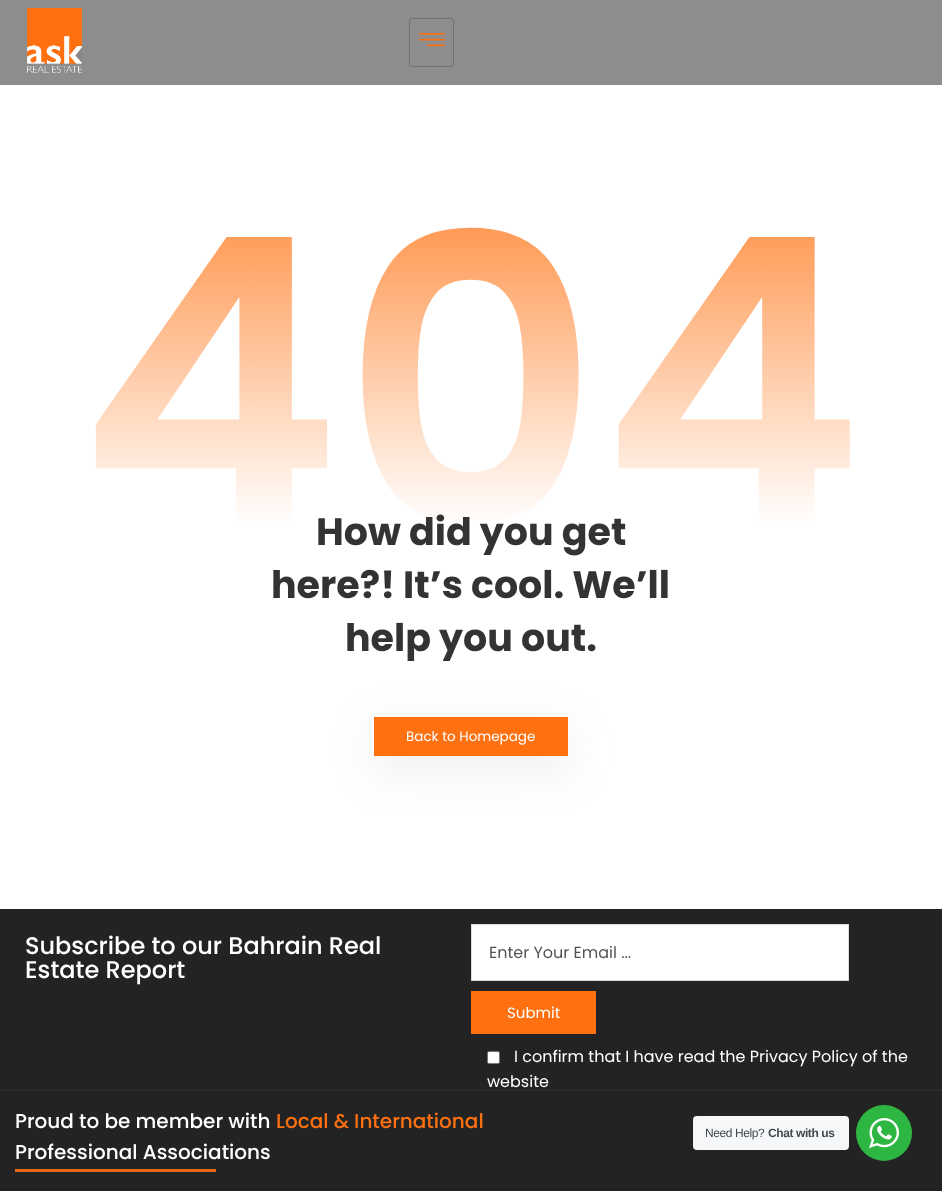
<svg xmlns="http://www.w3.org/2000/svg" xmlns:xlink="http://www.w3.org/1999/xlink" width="942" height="1191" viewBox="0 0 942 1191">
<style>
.cls-1{font:600 400px Poppins;fill:url(#g1)}
.cls-2{font:bold 38px Poppins;fill:#333333}
.cls-3{font:13.5px Poppins;fill:#ffffff}
.cls-4{font:500 24px Poppins;fill:#ffffff}
.cls-5{font:16px Poppins;fill:#535353}
.cls-6{font:15px Poppins;fill:#ffffff}
.cls-7{font:16px Poppins;fill:#ffffff}
.cls-8{font:500 20px Poppins;fill:#ffffff}
.cls-9{font:500 20px Poppins;fill:#ff7110}
.cls-10{font:12px Liberation Sans;letter-spacing:-0.4px;fill:#43474e}
.cls-11{font:bold 12px Liberation Sans;letter-spacing:-0.4px;fill:#43474e}
</style>
<defs>
<linearGradient id="g1" gradientUnits="userSpaceOnUse" x1="471" y1="105" x2="471" y2="665"><stop offset="0" stop-color="#ff7110"/><stop offset="0.75" stop-color="#ffffff"/></linearGradient>
</defs>
<rect width="100%" height="100%" fill="#ffffff"/>
<rect fill="#8d8d8d" x="0" y="0" width="942" height="85"/>
<image xlink:href="image0.png" x="27" y="8" width="55" height="65"/>
<rect fill="none" stroke="#717171" x="409.5" y="18.5" width="44" height="48" rx="2.5"/>
<image xlink:href="image1.png" x="419" y="33" width="26" height="14"/>
<rect fill="#8b8786" fill-opacity="0.15" filter="blur(22.5px)" x="374" y="730" width="194" height="40"/>
<rect fill="#ff7110" x="374" y="717" width="194" height="39"/>
<rect fill="#232323" x="0" y="909" width="942" height="181"/>
<rect fill="#2f2f2f" x="0" y="1090" width="942" height="1"/>
<rect fill="#ffffff" stroke="#dcdcdc" x="471.5" y="924.5" width="377" height="56"/>
<rect fill="#ff7110" x="471" y="991" width="125" height="43"/>
<rect fill="#ffffff" stroke="#767676" x="487.5" y="1051.5" width="12" height="12" rx="1.5"/>
<rect fill="#232323" x="0" y="1091" width="942" height="100"/>
<rect fill="#e56812" x="15" y="1169" width="201" height="3"/>
<rect fill="#f5f7f9" x="693" y="1116" width="156" height="34" rx="4"/>
<circle fill="#2db742" cx="884" cy="1133" r="28"/>
<image xlink:href="image2.png" x="869" y="1118" width="30" height="30"/>
<text class="cls-1" x="77" y="525">404</text>
<text class="cls-2" x="316" y="545">How did you get</text>
<text class="cls-2" x="271" y="598">here?! It’s cool. We’ll</text>
<text class="cls-2" x="345" y="651">help you out.</text>
<text class="cls-3" x="406" y="741">Back to Homepage</text>
<text class="cls-4"><tspan x="25" y="954">Subscribe to our Bahrain Real</tspan><tspan x="25" y="978">Estate Report</tspan></text>
<text class="cls-5" x="489" y="958">Enter Your Email ...</text>
<text class="cls-6" x="507" y="1018">Submit</text>
<text class="cls-7" x="514" y="1062">I confirm that I have read the Privacy Policy of the</text>
<text class="cls-7" x="487" y="1087">website</text>
<text class="cls-8" x="15" y="1128">Proud to be member with</text>
<text class="cls-9" x="276" y="1128">Local &amp; International</text>
<text class="cls-8" x="15" y="1159">Professional Associations</text>
<text class="cls-10" x="705" y="1137">Need Help?</text>
<text class="cls-11" x="768" y="1137">Chat with us</text>
</svg>
